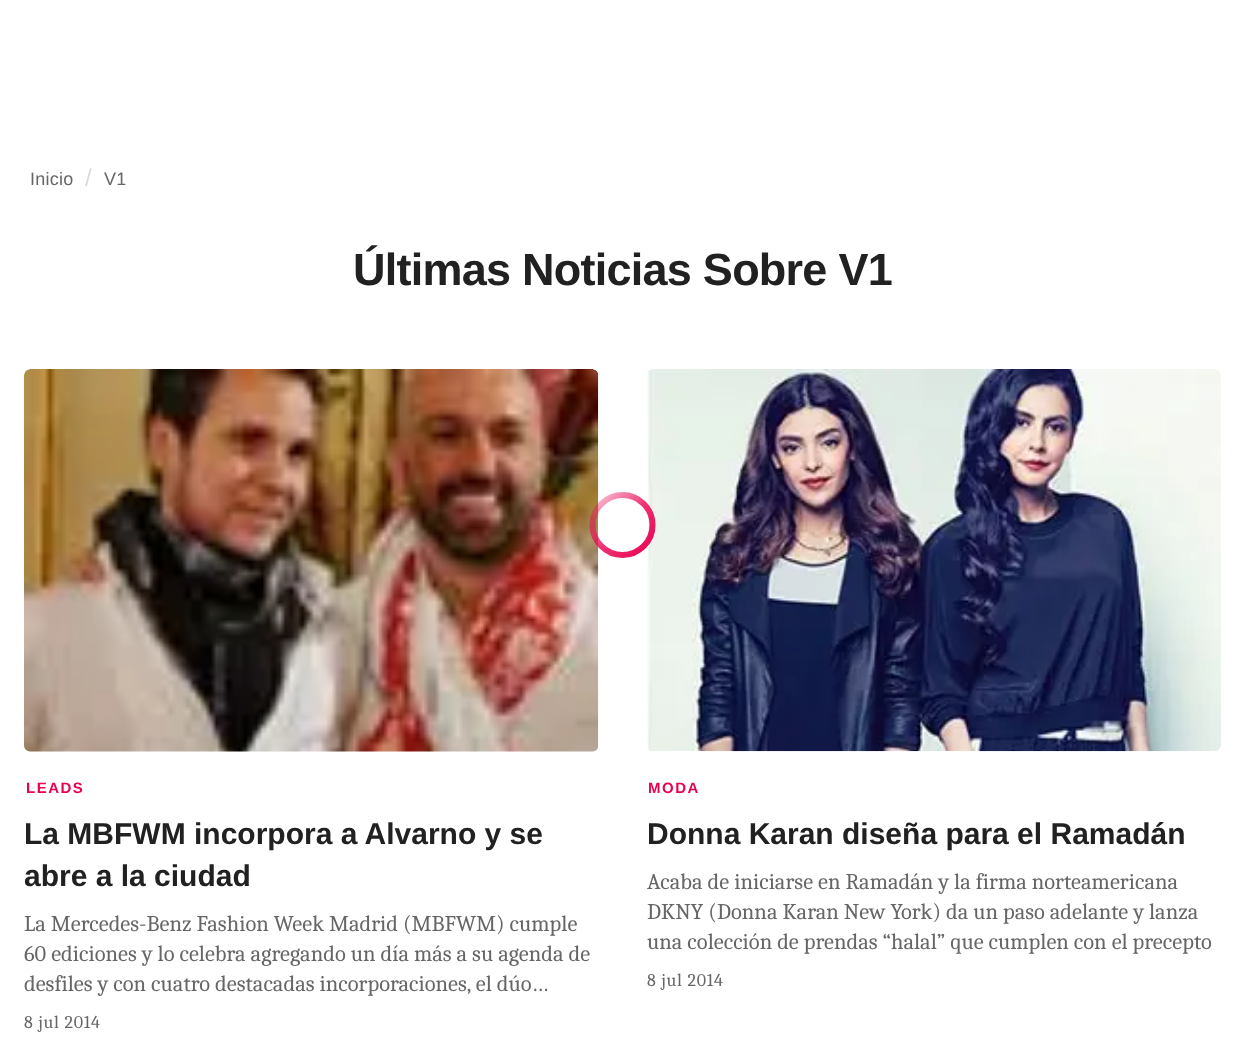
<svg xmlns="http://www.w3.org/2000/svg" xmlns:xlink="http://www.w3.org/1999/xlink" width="1245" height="1048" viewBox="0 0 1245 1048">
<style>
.cls-1{font:18px Liberation Sans;letter-spacing:0.25px;fill:#666666}
.cls-2{font:24px Liberation Sans;fill:#dbdbdb}
.cls-3{font:bold 45px Liberation Sans;letter-spacing:-0.75px;fill:#212121}
.cls-4{font:bold 15px Liberation Sans;letter-spacing:1.5px;fill:#ea0151}
.cls-5{font:bold 30px Liberation Sans;fill:#212121}
.cls-6{font:22.5px Caladea;fill:#666666}
.cls-7{font:18px Caladea;letter-spacing:0.75px;fill:#666666}
</style>
<defs>
<linearGradient id="g1" gradientUnits="userSpaceOnUse" x1="593" y1="495" x2="653" y2="555"><stop offset="0" stop-color="#ea0151" stop-opacity="0.2"/><stop offset="0.5" stop-color="#ea0151" stop-opacity="0.8"/><stop offset="1" stop-color="#ea0151"/></linearGradient>
</defs>
<rect width="100%" height="100%" fill="#ffffff"/>
<image xlink:href="image0.png" x="24" y="369" width="575" height="383"/>
<image xlink:href="image1.png" x="647" y="369" width="574" height="383"/>
<circle fill="none" stroke="url(#g1)" stroke-width="6" cx="622.5" cy="525" r="30"/>
<text class="cls-1" x="30" y="185">Inicio</text>
<text class="cls-2" x="85" y="186">/</text>
<text class="cls-1" x="104" y="185">V1</text>
<text class="cls-3" x="353" y="285">Últimas Noticias Sobre V1</text>
<text class="cls-4" x="26" y="793">LEADS</text>
<text class="cls-5"><tspan x="24" y="844">La MBFWM incorpora a Alvarno y se</tspan><tspan x="24" y="886">abre a la ciudad</tspan></text>
<text class="cls-6"><tspan x="24" y="931">La Mercedes-Benz Fashion Week Madrid (MBFWM) cumple</tspan><tspan x="24" y="961">60 ediciones y lo celebra agregando un día más a su agenda de</tspan><tspan x="24" y="991">desfiles y con cuatro destacadas incorporaciones, el dúo…</tspan></text>
<text class="cls-7" x="24" y="1028">8 jul 2014</text>
<text class="cls-4" x="648" y="793">MODA</text>
<text class="cls-5" x="647" y="844">Donna Karan diseña para el Ramadán</text>
<text class="cls-6"><tspan x="647" y="889">Acaba de iniciarse en Ramadán y la firma norteamericana</tspan><tspan x="647" y="919">DKNY (Donna Karan New York) da un paso adelante y lanza</tspan><tspan x="647" y="949">una colección de prendas “halal” que cumplen con el precepto</tspan></text>
<text class="cls-7" x="647" y="986">8 jul 2014</text>
</svg>
